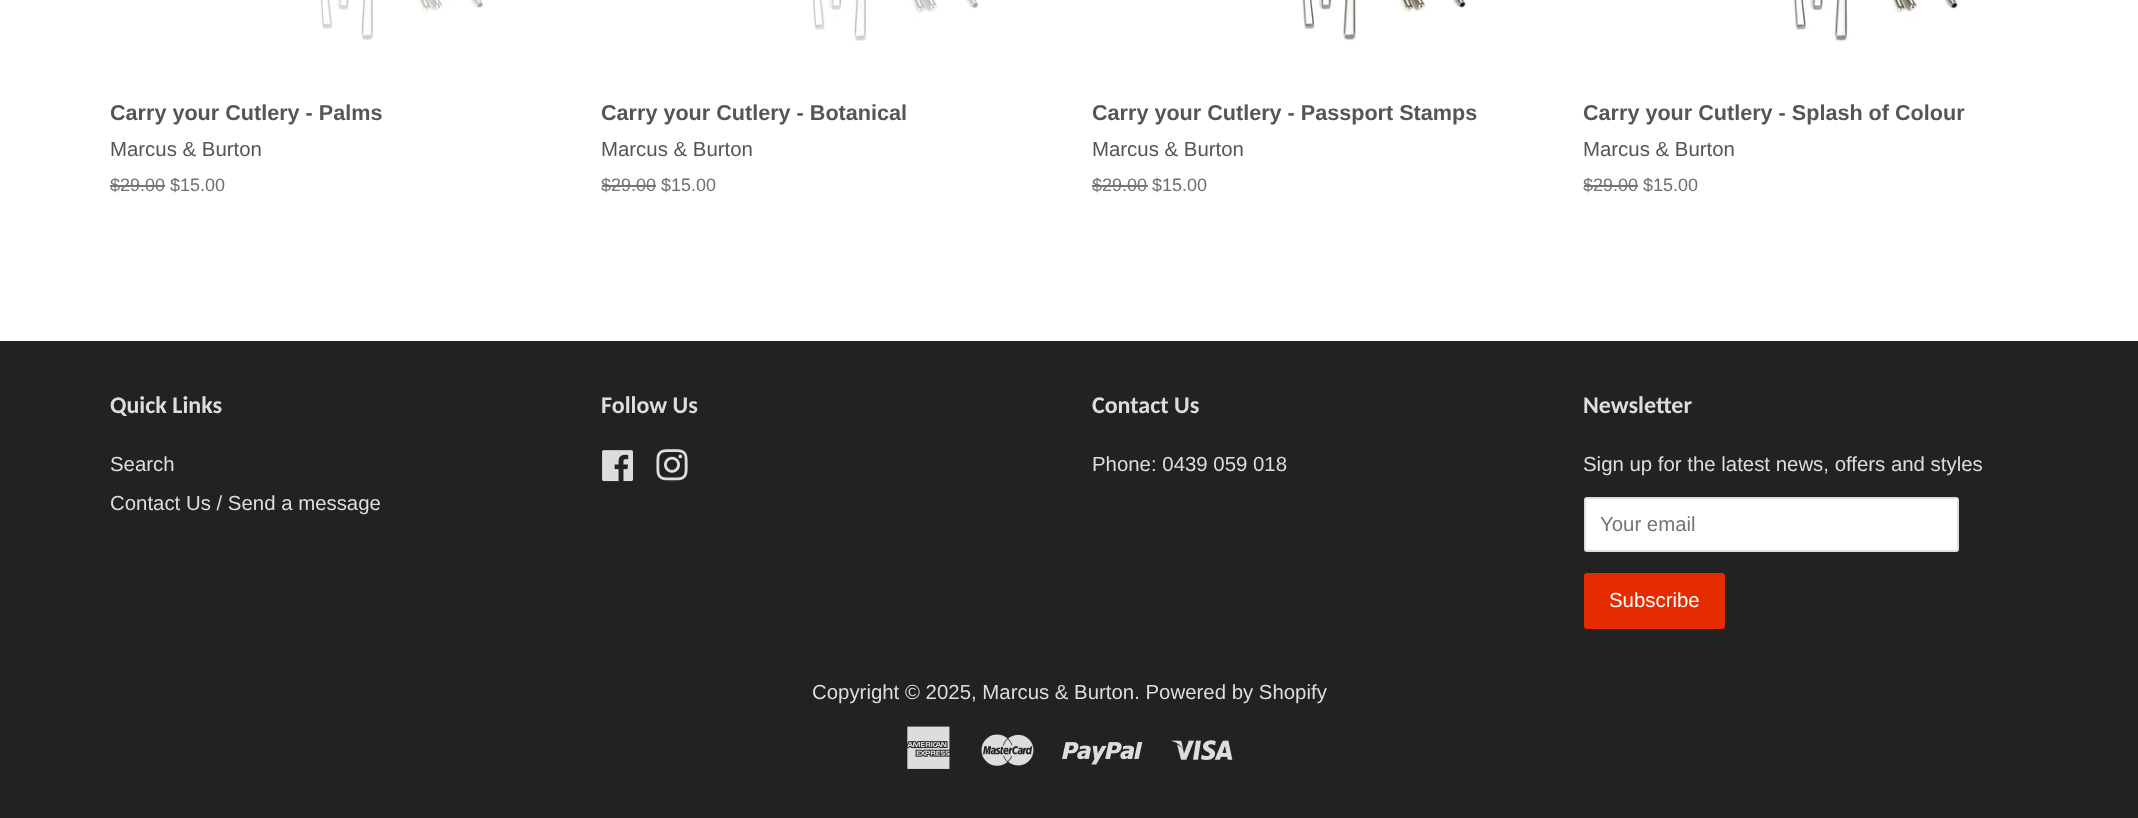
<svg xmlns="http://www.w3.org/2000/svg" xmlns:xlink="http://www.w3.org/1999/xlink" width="2138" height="818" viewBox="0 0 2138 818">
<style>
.cls-1{font:bold 21.6px Liberation Sans;fill:#555555}
.cls-2{font:20.4px Liberation Sans;fill:#555555}
.cls-3{font:18px Liberation Sans;fill:#757575}
.cls-4{font:18px Liberation Sans;fill:#6e6e6e}
.cls-5{font:bold 24px Carlito;fill:#dddddd}
.cls-6{font:20.4px Liberation Sans;fill:#dddddd}
.cls-7{font:20.4px Liberation Sans;fill:#757575}
.cls-8{font:20.4px Liberation Sans;fill:#ffffff}
</style>
<rect width="100%" height="100%" fill="#ffffff"/>
<image xlink:href="image0.png" x="320" y="0" width="164" height="40"/>
<rect fill="#757575" x="110" y="185" width="55" height="2"/>
<image xlink:href="image1.png" x="812" y="0" width="167" height="41"/>
<rect fill="#757575" x="602" y="185" width="54" height="2"/>
<image xlink:href="image2.png" x="1300" y="0" width="168" height="41"/>
<rect fill="#757575" x="1092" y="185" width="56" height="2"/>
<image xlink:href="image3.png" x="1792" y="0" width="167" height="42"/>
<rect fill="#757575" x="1584" y="185" width="54" height="2"/>
<rect fill="#222222" x="0" y="341" width="2138" height="477"/>
<image xlink:href="image4.png" x="602" y="450" width="31" height="32"/>
<image xlink:href="image5.png" x="656" y="449" width="32" height="32"/>
<rect fill="#ffffff" stroke="#dddddd" stroke-width="2" x="1585" y="498" width="373" height="53" rx="2"/>
<rect fill="#e42c00" x="1584" y="573" width="141" height="56" rx="3"/>
<image xlink:href="image6.png" x="907" y="726" width="43" height="43"/>
<image xlink:href="image7.png" x="981" y="734" width="53" height="32"/>
<image xlink:href="image8.png" x="1062" y="742" width="81" height="23"/>
<image xlink:href="image9.png" x="1171" y="740" width="62" height="20"/>
<text class="cls-1" x="110" y="120">Carry your Cutlery - Palms</text>
<text class="cls-2" x="110" y="156">Marcus &amp; Burton</text>
<text class="cls-3" x="110" y="191">$29.00</text>
<text class="cls-4" x="170" y="191">$15.00</text>
<text class="cls-1" x="601" y="120">Carry your Cutlery - Botanical</text>
<text class="cls-2" x="601" y="156">Marcus &amp; Burton</text>
<text class="cls-3" x="601" y="191">$29.00</text>
<text class="cls-4" x="661" y="191">$15.00</text>
<text class="cls-1" x="1092" y="120">Carry your Cutlery - Passport Stamps</text>
<text class="cls-2" x="1092" y="156">Marcus &amp; Burton</text>
<text class="cls-3" x="1092" y="191">$29.00</text>
<text class="cls-4" x="1152" y="191">$15.00</text>
<text class="cls-1" x="1583" y="120">Carry your Cutlery - Splash of Colour</text>
<text class="cls-2" x="1583" y="156">Marcus &amp; Burton</text>
<text class="cls-3" x="1583" y="191">$29.00</text>
<text class="cls-4" x="1643" y="191">$15.00</text>
<text class="cls-5" x="110" y="413">Quick Links</text>
<text class="cls-6"><tspan x="110" y="471">Search</tspan><tspan x="110" y="510">Contact Us / Send a message</tspan></text>
<text class="cls-5" x="601" y="413">Follow Us</text>
<text class="cls-5" x="1092" y="413">Contact Us</text>
<text class="cls-6" x="1092" y="471">Phone: 0439 059 018</text>
<text class="cls-5" x="1583" y="413">Newsletter</text>
<text class="cls-6" x="1583" y="471">Sign up for the latest news, offers and styles</text>
<text class="cls-7" x="1600" y="531">Your email</text>
<text class="cls-8" x="1609" y="607">Subscribe</text>
<text class="cls-6" x="812" y="699">Copyright © 2025, Marcus &amp; Burton. Powered by Shopify</text>
</svg>
